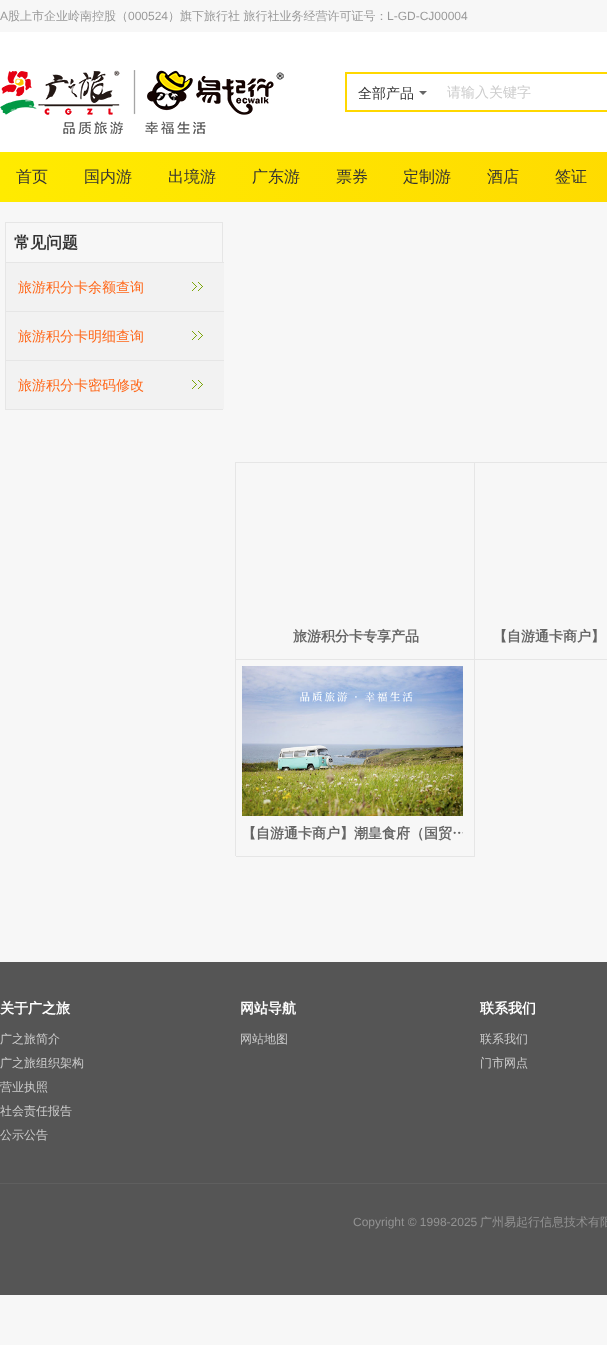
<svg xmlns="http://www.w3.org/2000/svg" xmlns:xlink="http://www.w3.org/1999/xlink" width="607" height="1345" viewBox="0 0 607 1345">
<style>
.cls-1{font:12px Liberation Sans;fill:#999999}
.cls-2{font:500 12px WenQuanYi Zen Hei;fill:#999999}
.cls-3{font:500 14px WenQuanYi Zen Hei;fill:#333333}
.cls-4{font:500 14px WenQuanYi Zen Hei;fill:#cccccc}
.cls-5{font:500 16px WenQuanYi Zen Hei;fill:#333333}
.cls-6{font:bold 16px WenQuanYi Zen Hei;fill:#333333}
.cls-7{font:500 14px WenQuanYi Zen Hei;fill:#ff681a}
.cls-8{font:bold 14px WenQuanYi Zen Hei;fill:#666666}
.cls-9{font:bold 14px WenQuanYi Zen Hei;fill:#ffffff}
.cls-10{font:500 12px WenQuanYi Zen Hei;fill:#cccccc}
.cls-11{font:12px Liberation Sans;fill:#939393}
.cls-12{font:500 12px WenQuanYi Zen Hei;fill:#939393}
</style>
<defs>
<linearGradient id="g1" gradientUnits="userSpaceOnUse" x1="0" y1="177" x2="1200" y2="177"><stop offset="0" stop-color="#ffeb00"/><stop offset="1" stop-color="#fecc00"/></linearGradient>
<clipPath id="clip1"><rect x="242" y="816" width="221" height="29"/></clipPath>
</defs>
<rect width="100%" height="100%" fill="#f7f7f7"/>
<rect fill="#ffffff" x="0" y="32" width="607" height="120"/>
<image xlink:href="image0.png" x="0" y="70" width="284" height="64"/>
<rect fill="none" stroke="#ffd800" stroke-width="2" x="346" y="73" width="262" height="38"/>
<path fill="#666666" d="M419 91H427L423 95Z"/>
<rect fill="url(#g1)" x="0" y="152" width="607" height="50"/>
<rect fill="none" stroke="#e6e6e6" x="5.5" y="222.5" width="217" height="187"/>
<rect fill="#f2f2f2" x="6" y="263" width="218" height="48"/>
<image xlink:href="image1.png" x="192" y="282" width="11" height="9"/>
<rect fill="#e6e6e6" x="6" y="262" width="218" height="1"/>
<rect fill="#f2f2f2" x="6" y="312" width="218" height="48"/>
<image xlink:href="image1.png" x="192" y="331" width="11" height="9"/>
<rect fill="#e6e6e6" x="6" y="311" width="218" height="1"/>
<rect fill="#f2f2f2" x="6" y="361" width="218" height="48"/>
<image xlink:href="image1.png" x="192" y="380" width="11" height="9"/>
<rect fill="#e6e6e6" x="6" y="360" width="218" height="1"/>
<rect fill="#e6e6e6" x="235" y="462" width="372" height="1"/>
<rect fill="#e6e6e6" x="235" y="462" width="1" height="394"/>
<rect fill="#e6e6e6" x="474" y="463" width="1" height="394"/>
<rect fill="#e6e6e6" x="236" y="659" width="371" height="1"/>
<rect fill="#e6e6e6" x="236" y="856" width="239" height="1"/>
<image xlink:href="image2.png" x="242" y="666" width="221" height="150"/>
<rect fill="#555555" x="0" y="962" width="607" height="333"/>
<rect fill="#5f5f5f" x="0" y="1183" width="607" height="1"/>
<text class="cls-1" x="0" y="20">A</text>
<text class="cls-2" x="8" y="20">股上市企业岭南控股（</text>
<text class="cls-1" x="128" y="20">000524</text>
<text class="cls-2" x="168" y="20">）旗下旅行社 旅行社业务经营许可证号：</text>
<text class="cls-1" x="387" y="20">L-GD-CJ00004</text>
<text class="cls-3" x="358" y="98">全部产品</text>
<text class="cls-4" x="447" y="97">请输入关键字</text>
<text class="cls-5" x="16" y="182">首页</text>
<text class="cls-5" x="84" y="182">国内游</text>
<text class="cls-5" x="168" y="182">出境游</text>
<text class="cls-5" x="252" y="182">广东游</text>
<text class="cls-5" x="336" y="182">票券</text>
<text class="cls-5" x="403" y="182">定制游</text>
<text class="cls-5" x="487" y="182">酒店</text>
<text class="cls-5" x="555" y="182">签证</text>
<text class="cls-6" x="14" y="248">常见问题</text>
<text class="cls-7" x="18" y="292">旅游积分卡余额查询</text>
<text class="cls-7" x="18" y="341">旅游积分卡明细查询</text>
<text class="cls-7" x="18" y="390">旅游积分卡密码修改</text>
<text class="cls-8" x="293" y="641">旅游积分卡专享产品</text>
<text class="cls-8" x="493" y="641">【自游通卡商户】</text>
<g clip-path="url(#clip1)">
<text class="cls-8" x="242" y="838">【自游通卡商户】潮皇食府（国贸…</text>
</g>
<text class="cls-9" x="0" y="1013">关于广之旅</text>
<text class="cls-10" x="0" y="1043">广之旅简介</text>
<text class="cls-10" x="0" y="1067">广之旅组织架构</text>
<text class="cls-10" x="0" y="1091">营业执照</text>
<text class="cls-10" x="0" y="1115">社会责任报告</text>
<text class="cls-10" x="0" y="1139">公示公告</text>
<text class="cls-9" x="240" y="1013">网站导航</text>
<text class="cls-10" x="240" y="1043">网站地图</text>
<text class="cls-9" x="480" y="1013">联系我们</text>
<text class="cls-10" x="480" y="1043">联系我们</text>
<text class="cls-10" x="480" y="1067">门市网点</text>
<text class="cls-11" x="353" y="1226">Copyright © 1998-2025</text>
<text class="cls-12" x="480" y="1226">广州易起行信息技术有限</text>
</svg>
